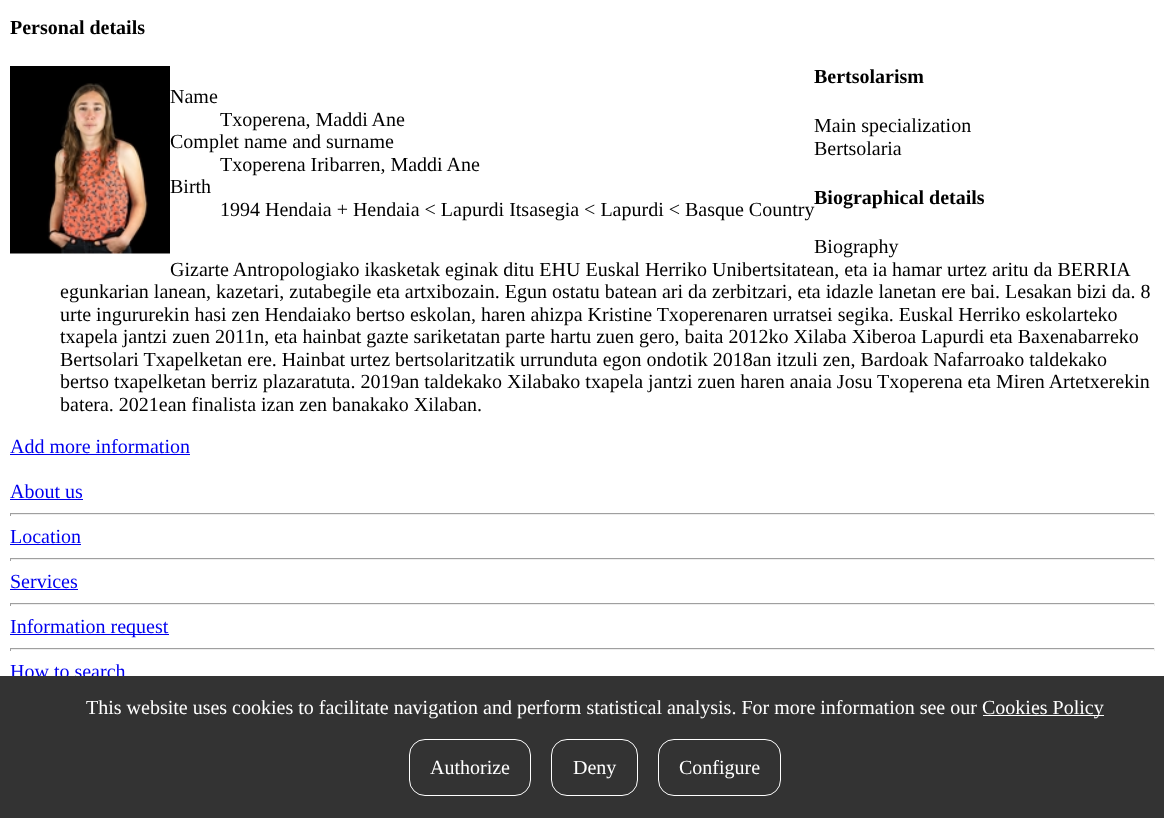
<svg xmlns="http://www.w3.org/2000/svg" xmlns:xlink="http://www.w3.org/1999/xlink" width="1164" height="818" viewBox="0 0 1164 818">
<style>
.cls-1{font:bold 20px Liberation Serif;fill:#000000}
.cls-2{font:20px Liberation Serif;fill:#000000}
.cls-3{font:20px Liberation Serif;fill:#0000ee}
.cls-4{font:20px Liberation Serif;fill:#ffffff}
</style>
<rect width="100%" height="100%" fill="#ffffff"/>
<image xlink:href="image0.png" x="10" y="66" width="160" height="188"/>
<rect fill="#0000ee" x="10" y="454" width="180" height="1"/>
<rect fill="#0000ee" x="10" y="499" width="73" height="1"/>
<rect fill="#9f9f9f" x="10" y="513" width="1145" height="1"/>
<rect fill="#eeeeee" x="1154" y="513" width="1" height="3"/>
<rect fill="#eeeeee" x="10" y="514" width="1145" height="1"/>
<rect fill="#9f9f9f" x="10" y="513" width="1" height="3"/>
<rect fill="#0000ee" x="10" y="544" width="71" height="1"/>
<rect fill="#9f9f9f" x="10" y="558" width="1145" height="1"/>
<rect fill="#eeeeee" x="1154" y="558" width="1" height="3"/>
<rect fill="#eeeeee" x="10" y="559" width="1145" height="1"/>
<rect fill="#9f9f9f" x="10" y="558" width="1" height="3"/>
<rect fill="#0000ee" x="10" y="589" width="68" height="1"/>
<rect fill="#9f9f9f" x="10" y="603" width="1145" height="1"/>
<rect fill="#eeeeee" x="1154" y="603" width="1" height="3"/>
<rect fill="#eeeeee" x="10" y="604" width="1145" height="1"/>
<rect fill="#9f9f9f" x="10" y="603" width="1" height="3"/>
<rect fill="#0000ee" x="10" y="634" width="159" height="1"/>
<rect fill="#9f9f9f" x="10" y="648" width="1145" height="1"/>
<rect fill="#eeeeee" x="1154" y="648" width="1" height="3"/>
<rect fill="#eeeeee" x="10" y="649" width="1145" height="1"/>
<rect fill="#9f9f9f" x="10" y="648" width="1" height="3"/>
<text class="cls-1" x="10" y="34">Personal details</text>
<text class="cls-2" x="170" y="103">Name</text>
<text class="cls-2" x="220" y="126">Txoperena, Maddi Ane</text>
<text class="cls-2" x="170" y="148">Complet name and surname</text>
<text class="cls-2" x="220" y="171">Txoperena Iribarren, Maddi Ane</text>
<text class="cls-2" x="170" y="193">Birth</text>
<text class="cls-2" x="220" y="216">1994 Hendaia + Hendaia &lt; Lapurdi Itsasegia &lt; Lapurdi &lt; Basque Country</text>
<text class="cls-1" x="814" y="83">Bertsolarism</text>
<text class="cls-2"><tspan x="814" y="132">Main specialization</tspan><tspan x="814" y="155">Bertsolaria</tspan></text>
<text class="cls-1" x="814" y="204">Biographical details</text>
<text class="cls-2" x="814" y="253">Biography</text>
<text class="cls-2" x="170" y="276">Gizarte Antropologiako ikasketak eginak ditu EHU Euskal Herriko Unibertsitatean, eta ia hamar urtez aritu da BERRIA</text>
<text class="cls-2"><tspan x="60" y="298">egunkarian lanean, kazetari, zutabegile eta artxibozain. Egun ostatu batean ari da zerbitzari, eta idazle lanetan ere bai. Lesakan bizi da. 8</tspan><tspan x="60" y="321">urte ingururekin hasi zen Hendaiako bertso eskolan, haren ahizpa Kristine Txoperenaren urratsei segika. Euskal Herriko eskolarteko</tspan><tspan x="60" y="343">txapela jantzi zuen 2011n, eta hainbat gazte sariketatan parte hartu zuen gero, baita 2012ko Xilaba Xiberoa Lapurdi eta Baxenabarreko</tspan><tspan x="60" y="366">Bertsolari Txapelketan ere. Hainbat urtez bertsolaritzatik urrunduta egon ondotik 2018an itzuli zen, Bardoak Nafarroako taldekako</tspan><tspan x="60" y="388">bertso txapelketan berriz plazaratuta. 2019an taldekako Xilabako txapela jantzi zuen haren anaia Josu Txoperena eta Miren Artetxerekin</tspan><tspan x="60" y="411">batera. 2021ean finalista izan zen banakako Xilaban.</tspan></text>
<text class="cls-3" x="10" y="453">Add more information</text>
<text class="cls-3" x="10" y="498">About us</text>
<text class="cls-3" x="10" y="543">Location</text>
<text class="cls-3" x="10" y="588">Services</text>
<text class="cls-3" x="10" y="633">Information request</text>
<text class="cls-3" x="10" y="678">How to search</text>
<rect fill="#333333" x="0" y="676" width="1164" height="142"/>
<text class="cls-4" x="86" y="714">This website uses cookies to facilitate navigation and perform statistical analysis. For more information see our</text>
<rect fill="#ffffff" x="983" y="715" width="121" height="1"/>
<text class="cls-4" x="982" y="714">Cookies Policy</text>
<rect fill="none" stroke="#ffffff" x="409.5" y="739.5" width="121" height="56" rx="15.5"/>
<text class="cls-4" x="430" y="774">Authorize</text>
<rect fill="none" stroke="#ffffff" x="551.5" y="739.5" width="86" height="56" rx="15.5"/>
<text class="cls-4" x="573" y="774">Deny</text>
<rect fill="none" stroke="#ffffff" x="658.5" y="739.5" width="122" height="56" rx="15.5"/>
<text class="cls-4" x="679" y="774">Configure</text>
</svg>
